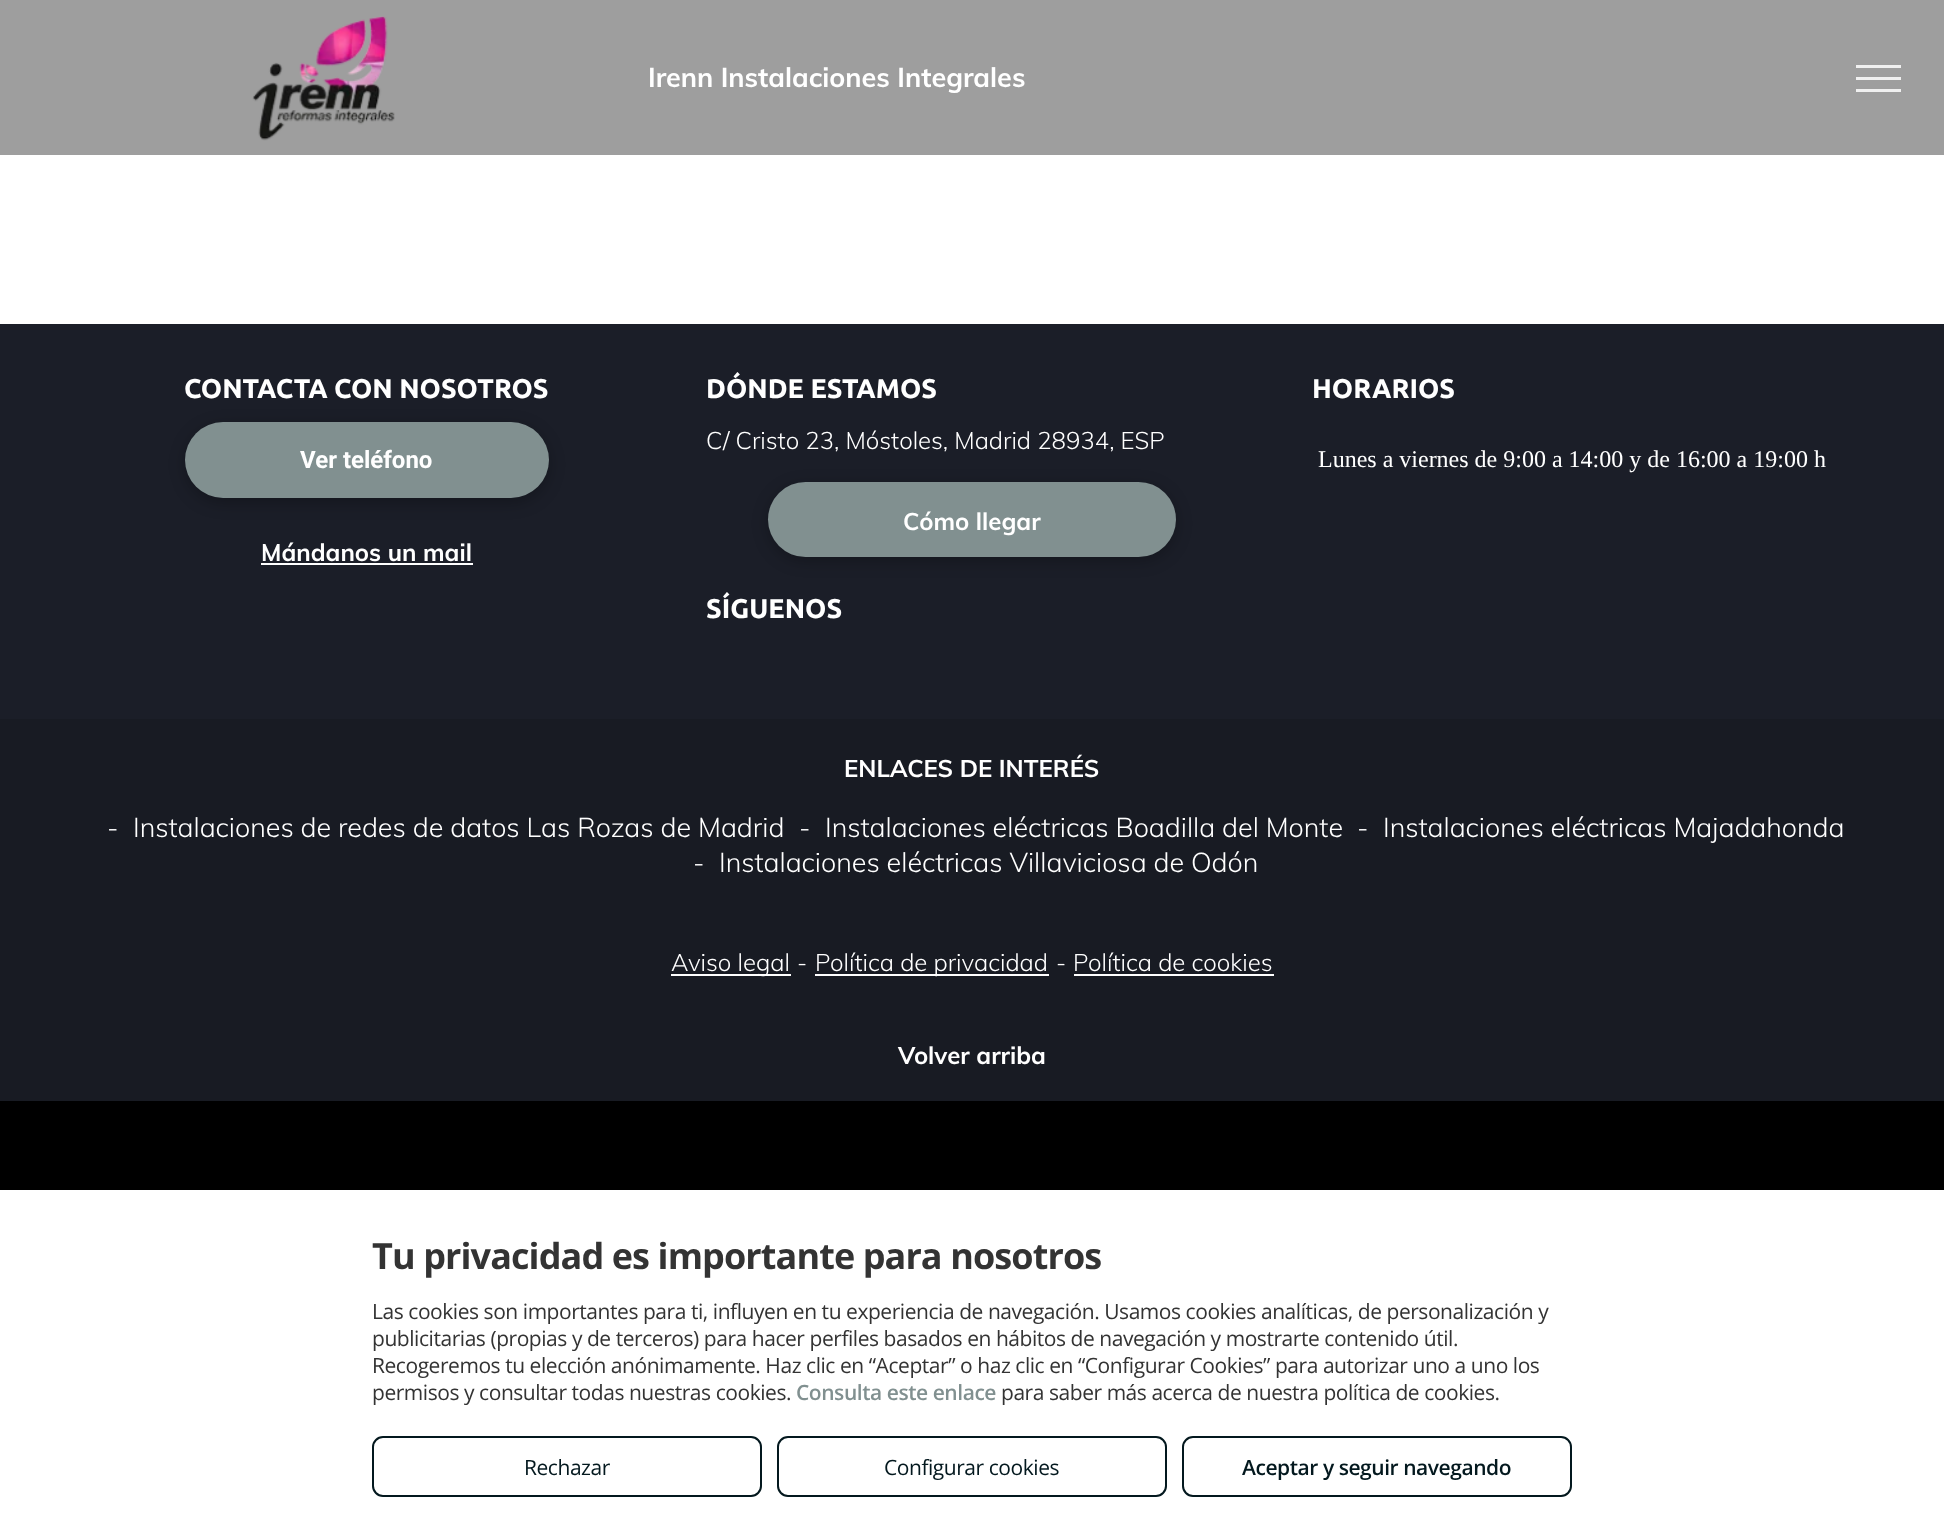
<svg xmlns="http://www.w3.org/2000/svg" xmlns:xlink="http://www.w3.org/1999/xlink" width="1944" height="1527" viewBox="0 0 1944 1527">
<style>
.cls-1{font:bold 27px Muli;fill:#ffffff}
.cls-2{font:bold 27px Ubuntu;fill:#ffffff}
.cls-3{font:bold 24px Roboto;fill:#ffffff}
.cls-4{font:bold 24px Muli;fill:#ffffff}
.cls-5{font:300 24px Muli;fill:#ffffff}
.cls-6{font:24px Liberation Serif;fill:#ffffff}
.cls-7{font:300 27px Muli;fill:#ffffff}
.cls-8{font:bold 36px Open Sans;letter-spacing:-0.9px;fill:#333333}
.cls-9{font:21px Open Sans;letter-spacing:-0.45px;fill:#333333}
.cls-10{font:600 21px Open Sans;letter-spacing:-0.45px;fill:#819090}
.cls-11{font:21px Open Sans;letter-spacing:-0.45px;fill:#03181e}
.cls-12{font:600 21px Open Sans;letter-spacing:-0.45px;fill:#03181e}
</style>
<rect width="100%" height="100%" fill="#ffffff"/>
<rect fill="#9e9e9e" x="0" y="0" width="1944" height="155"/>
<image xlink:href="image0.png" x="252" y="16" width="143" height="125"/>
<rect fill="#f0f0f0" x="1856" y="65" width="45" height="3"/>
<rect fill="#f0f0f0" x="1856" y="77" width="45" height="3"/>
<rect fill="#f0f0f0" x="1856" y="89" width="45" height="3"/>
<rect fill="#1b1e28" x="0" y="324" width="1944" height="395"/>
<rect fill="#000000" fill-opacity="0.25" filter="blur(8px)" x="185" y="426" width="364" height="77" rx="38.5"/>
<rect fill="#819090" x="185" y="422" width="364" height="76" rx="38"/>
<rect fill="#ffffff" x="261" y="563" width="212" height="2"/>
<rect fill="#000000" fill-opacity="0.25" filter="blur(8px)" x="768" y="486" width="408" height="75" rx="37.5"/>
<rect fill="#819090" x="768" y="482" width="408" height="75" rx="37.5"/>
<rect fill="#181b23" x="0" y="719" width="1944" height="382"/>
<rect fill="#ffffff" x="671" y="974" width="120" height="2"/>
<rect fill="#ffffff" x="815" y="974" width="234" height="2"/>
<rect fill="#ffffff" x="1074" y="974" width="200" height="2"/>
<rect fill="#000000" x="0" y="1101" width="1944" height="89"/>
<rect fill="none" stroke="#03181e" stroke-width="2" x="373" y="1437" width="388" height="59" rx="10"/>
<rect fill="none" stroke="#03181e" stroke-width="2" x="778" y="1437" width="388" height="59" rx="10"/>
<rect fill="none" stroke="#03181e" stroke-width="2" x="1183" y="1437" width="388" height="59" rx="10"/>
<text class="cls-1" x="648" y="87">Irenn Instalaciones Integrales</text>
<text class="cls-2" x="184" y="398">CONTACTA CON NOSOTROS</text>
<text class="cls-3" x="300" y="468">Ver teléfono</text>
<text class="cls-4" x="261" y="561">Mándanos un mail</text>
<text class="cls-2" x="706" y="398">DÓNDE ESTAMOS</text>
<text class="cls-5" x="706" y="449">C/ Cristo 23, Móstoles, Madrid 28934, ESP</text>
<text class="cls-4" x="903" y="530">Cómo llegar</text>
<text class="cls-2" x="706" y="618">SÍGUENOS</text>
<text class="cls-2" x="1312" y="398">HORARIOS</text>
<text class="cls-6" x="1318" y="467">Lunes a viernes de 9:00 a 14:00 y de 16:00 a 19:00 h</text>
<text class="cls-4" x="844" y="777">ENLACES DE INTERÉS</text>
<text class="cls-7" x="107" y="837">-</text>
<text class="cls-7" x="133" y="837">Instalaciones de redes de datos Las Rozas de Madrid</text>
<text class="cls-7" x="799" y="837">-</text>
<text class="cls-7" x="825" y="837">Instalaciones eléctricas Boadilla del Monte</text>
<text class="cls-7" x="1357" y="837">-</text>
<text class="cls-7" x="1383" y="837">Instalaciones eléctricas Majadahonda</text>
<text class="cls-7" x="693" y="872">-</text>
<text class="cls-7" x="719" y="872">Instalaciones eléctricas Villaviciosa de Odón</text>
<text class="cls-5" x="671" y="971">Aviso legal</text>
<text class="cls-5" x="797" y="971">-</text>
<text class="cls-5" x="815" y="971">Política de privacidad</text>
<text class="cls-5" x="1056" y="971">-</text>
<text class="cls-5" x="1073" y="971">Política de cookies</text>
<text class="cls-4" x="898" y="1064">Volver arriba</text>
<text class="cls-8" x="372" y="1269">Tu privacidad es importante para nosotros</text>
<text class="cls-9"><tspan x="372" y="1319">Las cookies son importantes para ti, influyen en tu experiencia de navegación. Usamos cookies analíticas, de personalización y</tspan><tspan x="372" y="1346">publicitarias (propias y de terceros) para hacer perfiles basados en hábitos de navegación y mostrarte contenido útil.</tspan><tspan x="372" y="1373">Recogeremos tu elección anónimamente. Haz clic en “Aceptar” o haz clic en “Configurar Cookies” para autorizar uno a uno los</tspan><tspan x="372" y="1400">permisos y consultar todas nuestras cookies.</tspan></text>
<text class="cls-10" x="796" y="1400">Consulta este enlace</text>
<text class="cls-9" x="1001" y="1400">para saber más acerca de nuestra política de cookies.</text>
<text class="cls-11" x="524" y="1475">Rechazar</text>
<text class="cls-11" x="884" y="1475">Configurar cookies</text>
<text class="cls-12" x="1242" y="1475">Aceptar y seguir navegando</text>
</svg>
